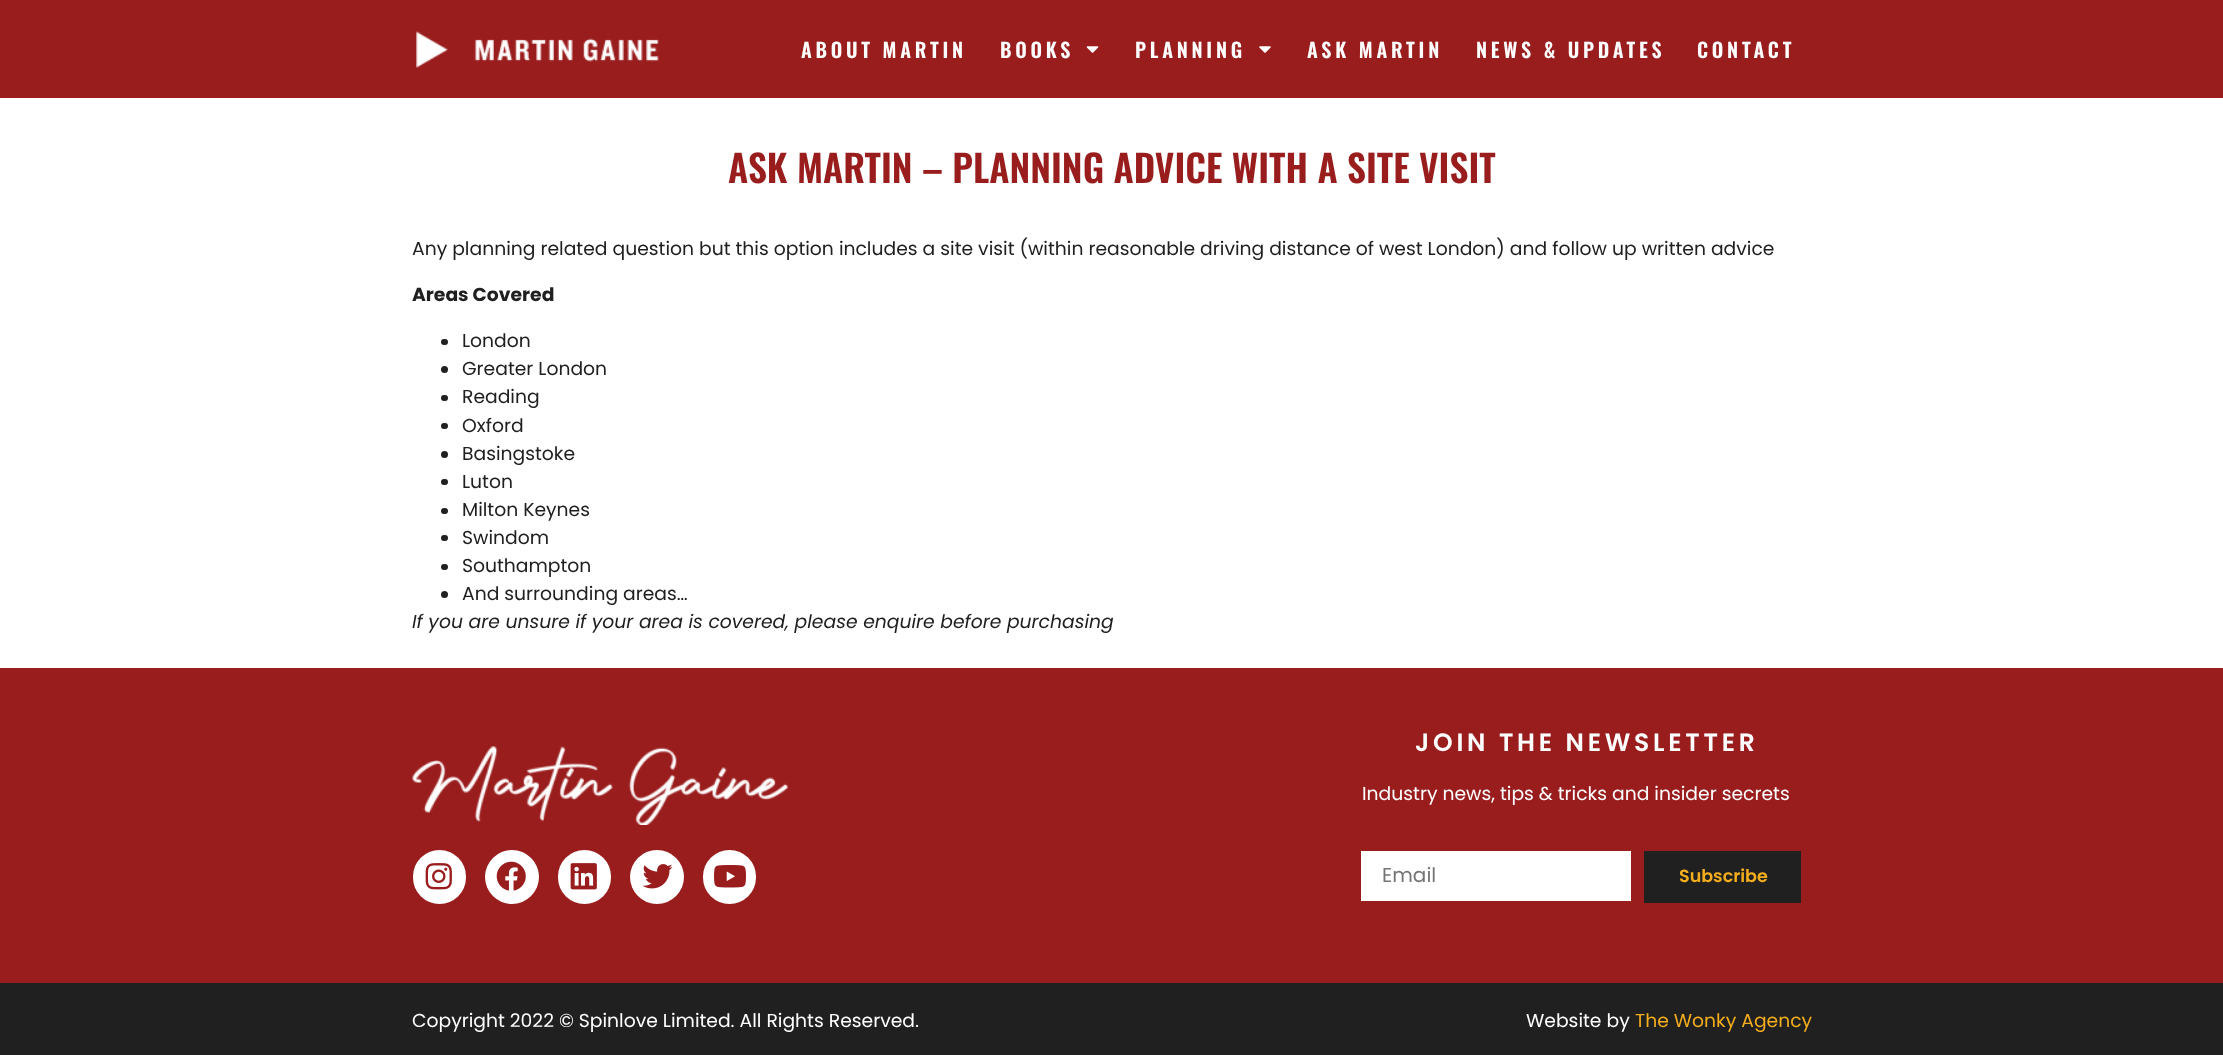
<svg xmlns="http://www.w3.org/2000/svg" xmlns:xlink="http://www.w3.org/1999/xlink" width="2223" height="1055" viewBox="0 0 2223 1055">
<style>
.cls-1{font:600 20px Oswald;letter-spacing:3.75px;fill:#ffffff}
.cls-2{font:600 37.5px Oswald;fill:#9a1d1e}
.cls-3{font:18.75px Poppins;fill:#202020}
.cls-4{font:bold 18.75px Poppins;fill:#202020}
.cls-5{font:italic 18.75px Poppins;fill:#202020}
.cls-6{font:600 25px Poppins;letter-spacing:3.75px;fill:#ffffff}
.cls-7{font:18.75px Poppins;fill:#ffffff}
.cls-8{font:20px Poppins;fill:#757575}
.cls-9{font:600 17.5px Poppins;fill:#f4ad1d}
.cls-10{font:18.75px Poppins;fill:#f4ad1d}
</style>
<rect width="100%" height="100%" fill="#ffffff"/>
<rect fill="#9a1d1e" x="0" y="0" width="2223" height="98"/>
<image xlink:href="image0.png" x="416" y="31" width="243" height="37"/>
<image xlink:href="image1.png" x="1086" y="46" width="13" height="7"/>
<image xlink:href="image2.png" x="1259" y="46" width="12" height="7"/>
<rect fill="#202020" x="441" y="339" width="7" height="6" rx="3"/>
<circle fill="#202020" cx="444.5" cy="369.5" r="3.5"/>
<rect fill="#202020" x="441" y="395" width="7" height="6" rx="3"/>
<rect fill="#202020" x="441" y="423" width="7" height="6" rx="3"/>
<circle fill="#202020" cx="444.5" cy="454.5" r="3.5"/>
<rect fill="#202020" x="441" y="479" width="7" height="6" rx="3"/>
<rect fill="#202020" x="441" y="508" width="7" height="6" rx="3"/>
<rect fill="#202020" x="441" y="535" width="7" height="6" rx="3"/>
<rect fill="#202020" x="441" y="564" width="7" height="6" rx="3"/>
<circle fill="#202020" cx="444.5" cy="594.5" r="3.5"/>
<rect fill="#9a1d1e" x="0" y="668" width="2223" height="315"/>
<image xlink:href="image3.png" x="412" y="746" width="376" height="79"/>
<rect fill="#ffffff" x="413" y="850" width="53" height="54" rx="26.5"/>
<image xlink:href="image4.png" x="425" y="863" width="27" height="27"/>
<circle fill="#ffffff" cx="512" cy="877" r="27"/>
<image xlink:href="image5.png" x="496" y="861" width="30" height="30"/>
<rect fill="#ffffff" x="558" y="850" width="53" height="54" rx="26.5"/>
<image xlink:href="image6.png" x="570" y="863" width="27" height="27"/>
<circle fill="#ffffff" cx="657" cy="877" r="27"/>
<image xlink:href="image7.png" x="642" y="864" width="31" height="25"/>
<rect fill="#ffffff" x="703" y="850" width="53" height="54" rx="26.5"/>
<image xlink:href="image8.png" x="714" y="865" width="32" height="23"/>
<rect fill="#ffffff" x="1361" y="851" width="270" height="50"/>
<rect fill="#202020" x="1644" y="851" width="157" height="52"/>
<rect fill="#202020" x="0" y="983" width="2223" height="72"/>
<text class="cls-1" x="801" y="58">ABOUT MARTIN</text>
<text class="cls-1" x="1000" y="58">BOOKS</text>
<text class="cls-1" x="1135" y="58">PLANNING</text>
<text class="cls-1" x="1307" y="58">ASK MARTIN</text>
<text class="cls-1" x="1476" y="58">NEWS &amp; UPDATES</text>
<text class="cls-1" x="1697" y="58">CONTACT</text>
<text class="cls-2" x="728" y="183">ASK MARTIN – PLANNING ADVICE WITH A SITE VISIT</text>
<text class="cls-3" x="412" y="255">Any planning related question but this option includes a site visit (within reasonable driving distance of west London) and follow up written advice</text>
<text class="cls-4" x="412" y="301">Areas Covered</text>
<text class="cls-3"><tspan x="462" y="347">London</tspan><tspan x="462" y="375">Greater London</tspan><tspan x="462" y="403">Reading</tspan><tspan x="462" y="432">Oxford</tspan><tspan x="462" y="460">Basingstoke</tspan><tspan x="462" y="488">Luton</tspan><tspan x="462" y="516">Milton Keynes</tspan><tspan x="462" y="544">Swindom</tspan><tspan x="462" y="572">Southampton</tspan><tspan x="462" y="600">And surrounding areas…</tspan></text>
<text class="cls-5" x="412" y="628">If you are unsure if your area is covered, please enquire before purchasing</text>
<text class="cls-6" x="1415" y="751">JOIN THE NEWSLETTER</text>
<text class="cls-7" x="1362" y="800">Industry news, tips &amp; tricks and insider secrets</text>
<text class="cls-8" x="1382" y="882">Email</text>
<text class="cls-9" x="1679" y="882">Subscribe</text>
<text class="cls-7" x="412" y="1027">Copyright 2022 © Spinlove Limited. All Rights Reserved.</text>
<text class="cls-7" x="1526" y="1027">Website by</text>
<text class="cls-10" x="1635" y="1027">The Wonky Agency</text>
</svg>
